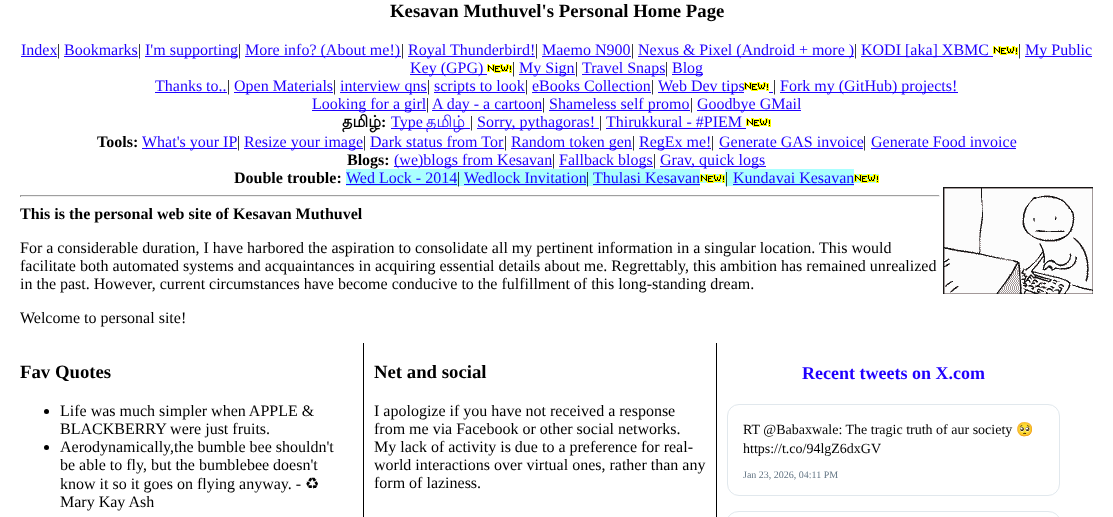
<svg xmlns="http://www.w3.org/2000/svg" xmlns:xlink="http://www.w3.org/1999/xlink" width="1113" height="517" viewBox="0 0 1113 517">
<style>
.cls-1{font:bold 18.75px Liberation Serif;fill:#000000}
.cls-2{font:16px Liberation Serif;fill:#1f00ff}
.cls-3{font:16px Liberation Serif;fill:#000000}
.cls-4{font:bold 16px Lohit Tamil;fill:#000000}
.cls-5{font:bold 16px Liberation Serif;fill:#000000}
.cls-6{font:16px Lohit Tamil;fill:#1f00ff}
.cls-7{font:16px DejaVu Sans;fill:#000000}
.cls-8{font:bold 18px Liberation Serif;fill:#1f00ff}
.cls-9{font:14px Liberation Serif;fill:#000000}
.cls-10{font:14px Noto Color Emoji;fill:#000000}
.cls-11{font:10px Liberation Serif;fill:#657786}
</style>
<rect width="100%" height="100%" fill="#ffffff"/>
<rect fill="#1f00ff" x="21" y="56" width="36" height="1"/>
<rect fill="#1f00ff" x="64" y="56" width="74" height="1"/>
<rect fill="#1f00ff" x="145" y="56" width="93" height="1"/>
<rect fill="#1f00ff" x="245" y="56" width="156" height="1"/>
<rect fill="#1f00ff" x="408" y="56" width="127" height="1"/>
<rect fill="#1f00ff" x="542" y="56" width="89" height="1"/>
<rect fill="#1f00ff" x="638" y="56" width="216" height="1"/>
<rect fill="#1f00ff" x="861" y="56" width="132" height="1"/>
<image xlink:href="image0.png" x="993" y="46" width="25" height="9"/>
<rect fill="#1f00ff" x="1025" y="56" width="67" height="1"/>
<rect fill="#1f00ff" x="410" y="74" width="77" height="1"/>
<image xlink:href="image0.png" x="487" y="64" width="25" height="9"/>
<rect fill="#1f00ff" x="519" y="74" width="56" height="1"/>
<rect fill="#1f00ff" x="582" y="74" width="83" height="1"/>
<rect fill="#1f00ff" x="672" y="74" width="31" height="1"/>
<rect fill="#1f00ff" x="155" y="92" width="72" height="1"/>
<rect fill="#1f00ff" x="234" y="92" width="99" height="1"/>
<rect fill="#1f00ff" x="340" y="92" width="87" height="1"/>
<rect fill="#1f00ff" x="434" y="92" width="91" height="1"/>
<rect fill="#1f00ff" x="532" y="92" width="119" height="1"/>
<rect fill="#1f00ff" x="658" y="92" width="86" height="1"/>
<rect fill="#1f00ff" x="769" y="92" width="4" height="1"/>
<image xlink:href="image0.png" x="744" y="82" width="25" height="9"/>
<rect fill="#1f00ff" x="780" y="92" width="178" height="1"/>
<rect fill="#1f00ff" x="312" y="110" width="114" height="1"/>
<rect fill="#1f00ff" x="432" y="110" width="110" height="1"/>
<rect fill="#1f00ff" x="549" y="110" width="141" height="1"/>
<rect fill="#1f00ff" x="697" y="110" width="104" height="1"/>
<rect fill="#1f00ff" x="391" y="128" width="79" height="1"/>
<rect fill="#1f00ff" x="477" y="128" width="122" height="1"/>
<rect fill="#1f00ff" x="606" y="128" width="140" height="1"/>
<image xlink:href="image0.png" x="746" y="118" width="25" height="9"/>
<rect fill="#1f00ff" x="142" y="148" width="95" height="1"/>
<rect fill="#1f00ff" x="244" y="148" width="119" height="1"/>
<rect fill="#1f00ff" x="370" y="148" width="134" height="1"/>
<rect fill="#1f00ff" x="511" y="148" width="121" height="1"/>
<rect fill="#1f00ff" x="639" y="148" width="72" height="1"/>
<rect fill="#1f00ff" x="719" y="148" width="144" height="1"/>
<rect fill="#1f00ff" x="871" y="148" width="145" height="1"/>
<rect fill="#1f00ff" x="394" y="166" width="158" height="1"/>
<rect fill="#1f00ff" x="559" y="166" width="94" height="1"/>
<rect fill="#1f00ff" x="660" y="166" width="106" height="1"/>
<rect fill="#aaffff" x="346" y="169" width="354" height="17"/>
<rect fill="#1f00ff" x="346" y="184" width="111" height="1"/>
<rect fill="#1f00ff" x="464" y="184" width="122" height="1"/>
<rect fill="#aaffff" x="700" y="174" width="25" height="9"/>
<rect fill="#1f00ff" x="593" y="184" width="107" height="1"/>
<rect fill="#aaffff" x="725" y="169" width="129" height="17"/>
<rect fill="#aaffff" x="854" y="174" width="25" height="9"/>
<rect fill="#1f00ff" x="733" y="184" width="121" height="1"/>
<image xlink:href="image2.png" x="854" y="174" width="25" height="9"/>
<rect fill="#9f9f9f" x="20" y="195" width="920" height="1"/>
<rect fill="#eeeeee" x="939" y="195" width="1" height="2"/>
<rect fill="#eeeeee" x="20" y="196" width="920" height="1"/>
<rect fill="#9f9f9f" x="20" y="195" width="1" height="2"/>
<image xlink:href="image3.png" x="943" y="187" width="150" height="107"/>
<circle fill="#000000" cx="46.5" cy="411.5" r="2.5"/>
<circle fill="#000000" cx="46.5" cy="447.5" r="2.5"/>
<rect fill="#000000" x="716" y="343" width="1" height="174"/>
<rect fill="#000000" x="363" y="343" width="1" height="174"/>
<rect fill="none" stroke="#e1e8ed" x="727.5" y="404.5" width="332" height="91" rx="11.5"/>
<rect fill="none" stroke="#e1e8ed" x="727.5" y="511.5" width="332" height="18" rx="11.5"/>
<text class="cls-1" x="390" y="17">Kesavan Muthuvel's Personal Home Page</text>
<text class="cls-2" x="21" y="55">Index</text>
<text class="cls-3" x="57" y="55">|</text>
<text class="cls-2" x="64" y="55">Bookmarks</text>
<text class="cls-3" x="138" y="55">|</text>
<text class="cls-2" x="145" y="55">I'm supporting</text>
<text class="cls-3" x="238" y="55">|</text>
<text class="cls-2" x="245" y="55">More info? (About me!)</text>
<text class="cls-3" x="401" y="55">|</text>
<text class="cls-2" x="408" y="55">Royal Thunderbird!</text>
<text class="cls-3" x="535" y="55">|</text>
<text class="cls-2" x="542" y="55">Maemo N900</text>
<text class="cls-3" x="631" y="55">|</text>
<text class="cls-2" x="638" y="55">Nexus &amp; Pixel (Android + more )</text>
<text class="cls-3" x="854" y="55">|</text>
<text class="cls-2" x="861" y="55">KODI [aka] XBMC</text>
<text class="cls-3" x="1018" y="55">|</text>
<text class="cls-2" x="1025" y="55">My Public</text>
<text class="cls-2" x="410" y="73">Key (GPG)</text>
<text class="cls-3" x="512" y="73">|</text>
<text class="cls-2" x="519" y="73">My Sign</text>
<text class="cls-3" x="575" y="73">|</text>
<text class="cls-2" x="582" y="73">Travel Snaps</text>
<text class="cls-3" x="665" y="73">|</text>
<text class="cls-2" x="672" y="73">Blog</text>
<text class="cls-2" x="155" y="91">Thanks to..</text>
<text class="cls-3" x="227" y="91">|</text>
<text class="cls-2" x="234" y="91">Open Materials</text>
<text class="cls-3" x="333" y="91">|</text>
<text class="cls-2" x="340" y="91">interview qns</text>
<text class="cls-3" x="427" y="91">|</text>
<text class="cls-2" x="434" y="91">scripts to look</text>
<text class="cls-3" x="525" y="91">|</text>
<text class="cls-2" x="532" y="91">eBooks Collection</text>
<text class="cls-3" x="651" y="91">|</text>
<text class="cls-2" x="658" y="91">Web Dev tips</text>
<text class="cls-3" x="773" y="91">|</text>
<text class="cls-2" x="780" y="91">Fork my (GitHub) projects!</text>
<text class="cls-2" x="312" y="109">Looking for a girl</text>
<text class="cls-3" x="426" y="109">|</text>
<text class="cls-2" x="432" y="109">A day - a cartoon</text>
<text class="cls-3" x="542" y="109">|</text>
<text class="cls-2" x="549" y="109">Shameless self promo</text>
<text class="cls-3" x="690" y="109">|</text>
<text class="cls-2" x="697" y="109">Goodbye GMail</text>
<text class="cls-4" x="342" y="127">தமிழ்</text>
<text class="cls-5" x="381" y="127">:</text>
<text class="cls-2" x="391" y="127">Type</text>
<text class="cls-6" x="426" y="127">தமிழ்</text>
<text class="cls-3" x="470" y="127">|</text>
<text class="cls-2" x="477" y="127">Sorry, pythagoras!</text>
<text class="cls-3" x="599" y="127">|</text>
<text class="cls-2" x="606" y="127">Thirukkural - #PIEM</text>
<text class="cls-5" x="97" y="147">Tools:</text>
<text class="cls-2" x="142" y="147">What's your IP</text>
<text class="cls-3" x="237" y="147">|</text>
<text class="cls-2" x="244" y="147">Resize your image</text>
<text class="cls-3" x="363" y="147">|</text>
<text class="cls-2" x="370" y="147">Dark status from Tor</text>
<text class="cls-3" x="504" y="147">|</text>
<text class="cls-2" x="511" y="147">Random token gen</text>
<text class="cls-3" x="632" y="147">|</text>
<text class="cls-2" x="639" y="147">RegEx me!</text>
<text class="cls-3" x="711" y="147">|</text>
<text class="cls-2" x="719" y="147">Generate GAS invoice</text>
<text class="cls-3" x="863" y="147">|</text>
<text class="cls-2" x="871" y="147">Generate Food invoice</text>
<text class="cls-5" x="347" y="165">Blogs:</text>
<text class="cls-2" x="394" y="165">(we)blogs from Kesavan</text>
<text class="cls-3" x="552" y="165">|</text>
<text class="cls-2" x="559" y="165">Fallback blogs</text>
<text class="cls-3" x="653" y="165">|</text>
<text class="cls-2" x="660" y="165">Grav, quick logs</text>
<text class="cls-5" x="234" y="183">Double trouble:</text>
<text class="cls-2" x="346" y="183">Wed Lock - 2014</text>
<text class="cls-3" x="457" y="183">|</text>
<text class="cls-2" x="464" y="183">Wedlock Invitation</text>
<text class="cls-3" x="586" y="183">|</text>
<text class="cls-2" x="593" y="183">Thulasi Kesavan</text>
<image xlink:href="image1.png" x="700" y="174" width="25" height="9"/>
<text class="cls-3" x="725" y="183">|</text>
<text class="cls-2" x="733" y="183">Kundavai Kesavan</text>
<text class="cls-5" x="20" y="219">This is the personal web site of Kesavan Muthuvel</text>
<text class="cls-3"><tspan x="20" y="253">For a considerable duration, I have harbored the aspiration to consolidate all my pertinent information in a singular location. This would</tspan><tspan x="20" y="271">facilitate both automated systems and acquaintances in acquiring essential details about me. Regrettably, this ambition has remained unrealized</tspan><tspan x="20" y="289">in the past. However, current circumstances have become conducive to the fulfillment of this long-standing dream.</tspan></text>
<text class="cls-3" x="20" y="323">Welcome to personal site!</text>
<text class="cls-1" x="20" y="378">Fav Quotes</text>
<text class="cls-3"><tspan x="60" y="416">Life was much simpler when APPLE &amp;</tspan><tspan x="60" y="434">BLACKBERRY were just fruits.</tspan><tspan x="60" y="452">Aerodynamically,the bumble bee shouldn't</tspan><tspan x="60" y="470">be able to fly, but the bumblebee doesn't</tspan><tspan x="60" y="489">know it so it goes on flying anyway. -</tspan></text>
<text class="cls-7" x="305" y="489">♻</text>
<text class="cls-3" x="60" y="507">Mary Kay Ash</text>
<text class="cls-1" x="374" y="378">Net and social</text>
<text class="cls-3"><tspan x="374" y="416">I apologize if you have not received a response</tspan><tspan x="374" y="434">from me via Facebook or other social networks.</tspan><tspan x="374" y="452">My lack of activity is due to a preference for real-</tspan><tspan x="374" y="470">world interactions over virtual ones, rather than any</tspan><tspan x="374" y="488">form of laziness.</tspan></text>
<text class="cls-8" x="802" y="379">Recent tweets on X.com</text>
<text class="cls-9" x="743" y="434">RT @Babaxwale: The tragic truth of aur society</text>
<text class="cls-10" x="1016" y="434">🥺</text>
<text class="cls-9" x="743" y="453">https://t.co/94lgZ6dxGV</text>
<text class="cls-11" x="743" y="478">Jan 23, 2026, 04:11 PM</text>
</svg>
